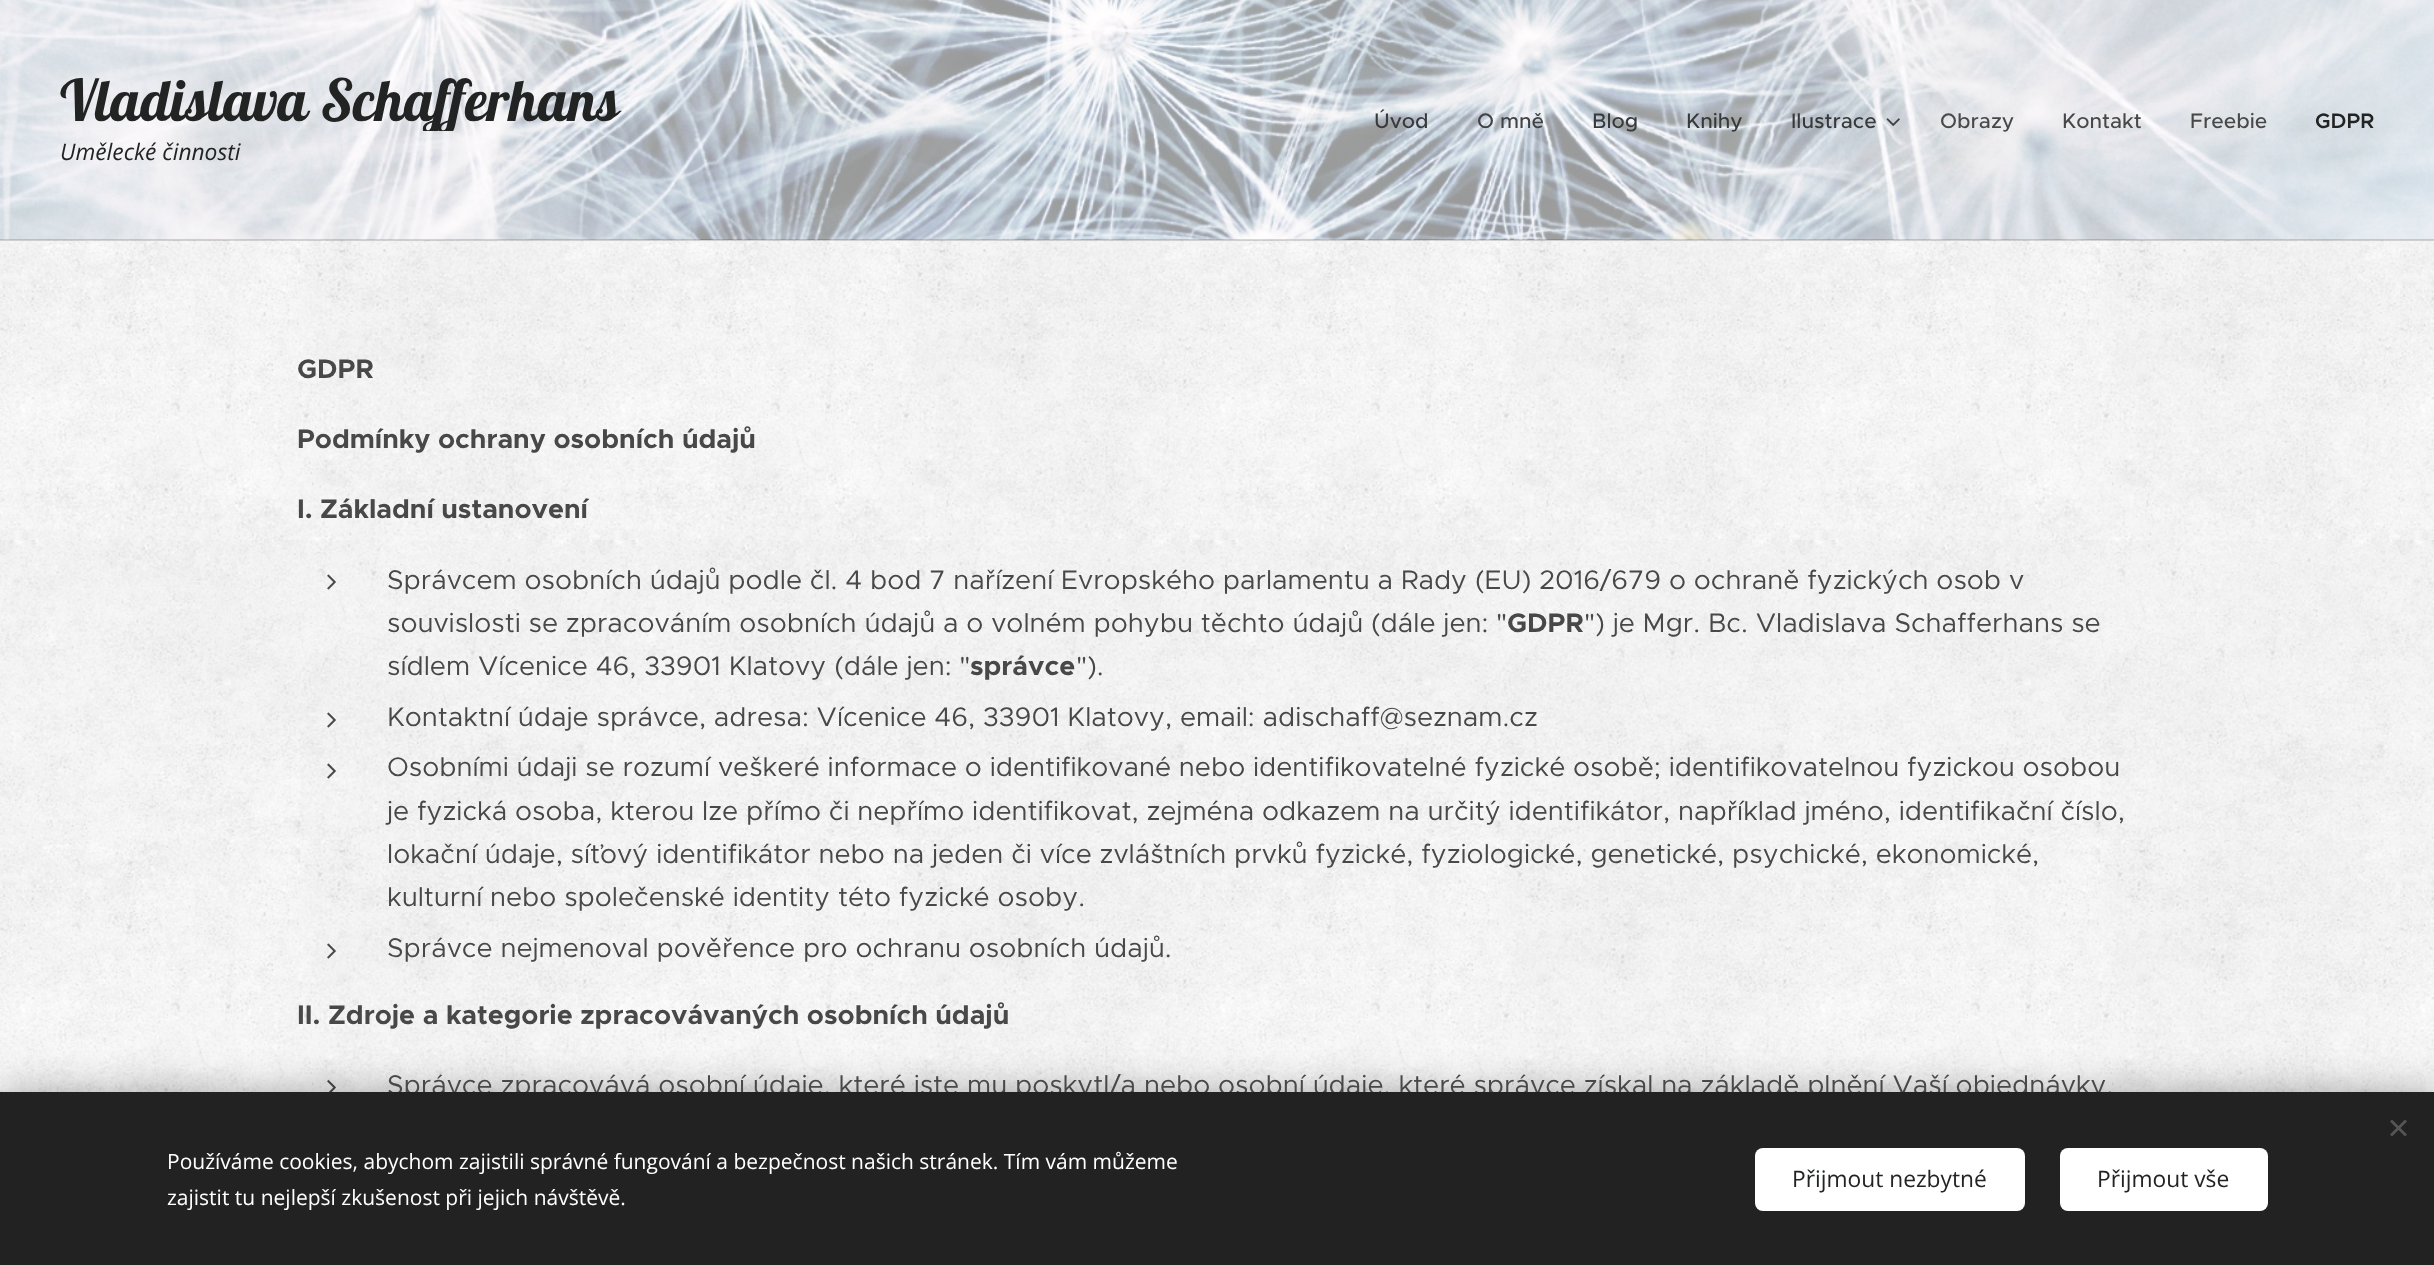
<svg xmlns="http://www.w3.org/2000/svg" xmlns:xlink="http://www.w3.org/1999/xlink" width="2434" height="1265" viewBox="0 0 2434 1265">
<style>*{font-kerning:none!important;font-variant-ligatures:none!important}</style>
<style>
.cls-1{font:57.5px Lobster;fill:#222323}
.cls-2{font:italic 22.75px Open Sans;fill:#222323}
.cls-3{font:500 21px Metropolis;fill:#37393b}
.cls-4{font:500 21px Metropolis;fill:#404244}
.cls-5{font:500 21px Metropolis;fill:#484848}
.cls-6{font:600 21px Metropolis;fill:#222323}
.cls-7{font:bold 27px Metropolis;fill:#484848}
.cls-8{font:27px Metropolis;fill:#484848}
.cls-9{font:21px Open Sans;fill:#ffffff}
.cls-10{font:22.75px Open Sans;fill:#222323}
</style>
<defs>
<clipPath id="clip1"><rect x="47" y="59" width="598" height="72"/></clipPath>
</defs>
<rect width="100%" height="100%" fill="#ffffff"/>
<image xlink:href="image0.png" x="0" y="0" width="2434" height="240"/>
<image xlink:href="image1.png" x="1886" y="118" width="14" height="8"/>
<image xlink:href="image2.png" x="0" y="240" width="2434" height="852"/>
<rect fill="#000000" fill-opacity="0.15" x="0" y="239" width="2434" height="2"/>
<image xlink:href="image3.png" x="327" y="574" width="9" height="16"/>
<image xlink:href="image4.png" x="327" y="712" width="9" height="16"/>
<image xlink:href="image5.png" x="327" y="763" width="9" height="16"/>
<image xlink:href="image6.png" x="327" y="943" width="9" height="16"/>
<image xlink:href="image7.png" x="327" y="1080" width="9" height="12"/>
<rect fill="#000000" fill-opacity="0.33" filter="blur(19px)" x="0" y="1092" width="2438" height="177"/>
<g clip-path="url(#clip1)">
<text class="cls-1" x="60" y="121">Vladislava Schafferhans</text>
</g>
<text class="cls-2" x="60" y="160">Umělecké činnosti</text>
<text class="cls-3" x="1374" y="128">Úvod</text>
<text class="cls-4" x="1477" y="128">O mně</text>
<text class="cls-3" x="1592" y="128">Blog</text>
<text class="cls-3" x="1686" y="128">Knihy</text>
<text class="cls-3" x="1791" y="128">Ilustrace</text>
<text class="cls-5" x="1940" y="128">Obrazy</text>
<text class="cls-5" x="2062" y="128">Kontakt</text>
<text class="cls-5" x="2190" y="128">Freebie</text>
<text class="cls-6" x="2315" y="128">GDPR</text>
<text class="cls-7" x="297" y="378">GDPR</text>
<text class="cls-7" x="297" y="448">Podmínky ochrany osobních údajů</text>
<text class="cls-7" x="297" y="518">I.</text>
<text class="cls-7" x="320" y="518">Základní ustanovení</text>
<text class="cls-8"><tspan x="387" y="589">Správcem osobních údajů podle čl. 4 bod 7 nařízení Evropského parlamentu a Rady (EU) 2016/679 o ochraně fyzických osob v</tspan><tspan x="387" y="632">souvislosti se zpracováním osobních údajů a o volném pohybu těchto údajů (dále jen: "</tspan></text>
<text class="cls-7" x="1507" y="632">GDPR</text>
<text class="cls-8" x="1584" y="632">") je Mgr. Bc. Vladislava Schafferhans se</text>
<text class="cls-8" x="387" y="675">sídlem Vícenice 46, 33901 Klatovy (dále jen: "</text>
<text class="cls-7" x="970" y="675">správce</text>
<text class="cls-8" x="1076" y="675">").</text>
<text class="cls-8"><tspan x="387" y="726">Kontaktní údaje správce, adresa: Vícenice 46, 33901 Klatovy, email: adischaff@seznam.cz</tspan><tspan x="387" y="776">Osobními údaji se rozumí veškeré informace o identifikované nebo identifikovatelné fyzické osobě; identifikovatelnou</tspan></text>
<text class="cls-8" x="1907" y="776">fyzickou osobou</text>
<text class="cls-8"><tspan x="387" y="820">je fyzická osoba, kterou lze přímo či nepřímo identifikovat, zejména odkazem na určitý identifikátor, například jméno, identifikační číslo,</tspan><tspan x="387" y="863">lokační údaje, síťový identifikátor nebo na jeden či více zvláštních prvků fyzické, fyziologické, genetické, psychické, ekonomické,</tspan><tspan x="387" y="906">kulturní nebo společenské identity této fyzické osoby.</tspan><tspan x="387" y="957">Správce nejmenoval pověřence pro ochranu osobních údajů.</tspan></text>
<text class="cls-7" x="297" y="1024">II.</text>
<text class="cls-7" x="328" y="1024">Zdroje a kategorie zpracovávaných osobních údajů</text>
<text class="cls-8" x="387" y="1094">Správce zpracovává osobní údaje, které jste mu poskytl/a nebo osobní údaje, které správce získal na základě plnění Vaší objednávky.</text>
<rect fill="#222222" x="0" y="1092" width="2434" height="173"/>
<path fill="#555555" d="M2390 1134.5L2405 1119.5L2407 1121.5L2392 1136.5Z"/>
<path fill="#555555" d="M2392 1119.5L2407 1134.5L2405 1136.5L2390 1121.5Z"/>
<text class="cls-9"><tspan x="167" y="1169">Používáme cookies, abychom zajistili správné fungování a bezpečnost našich stránek. Tím vám můžeme</tspan><tspan x="167" y="1205">zajistit tu nejlepší zkušenost při jejich návštěvě.</tspan></text>
<rect fill="#ffffff" x="1755" y="1148" width="270" height="63" rx="8"/>
<text class="cls-10" x="1792" y="1187">Přijmout nezbytné</text>
<rect fill="#ffffff" x="2060" y="1148" width="208" height="63" rx="8"/>
<text class="cls-10" x="2097" y="1187">Přijmout vše</text>
</svg>
